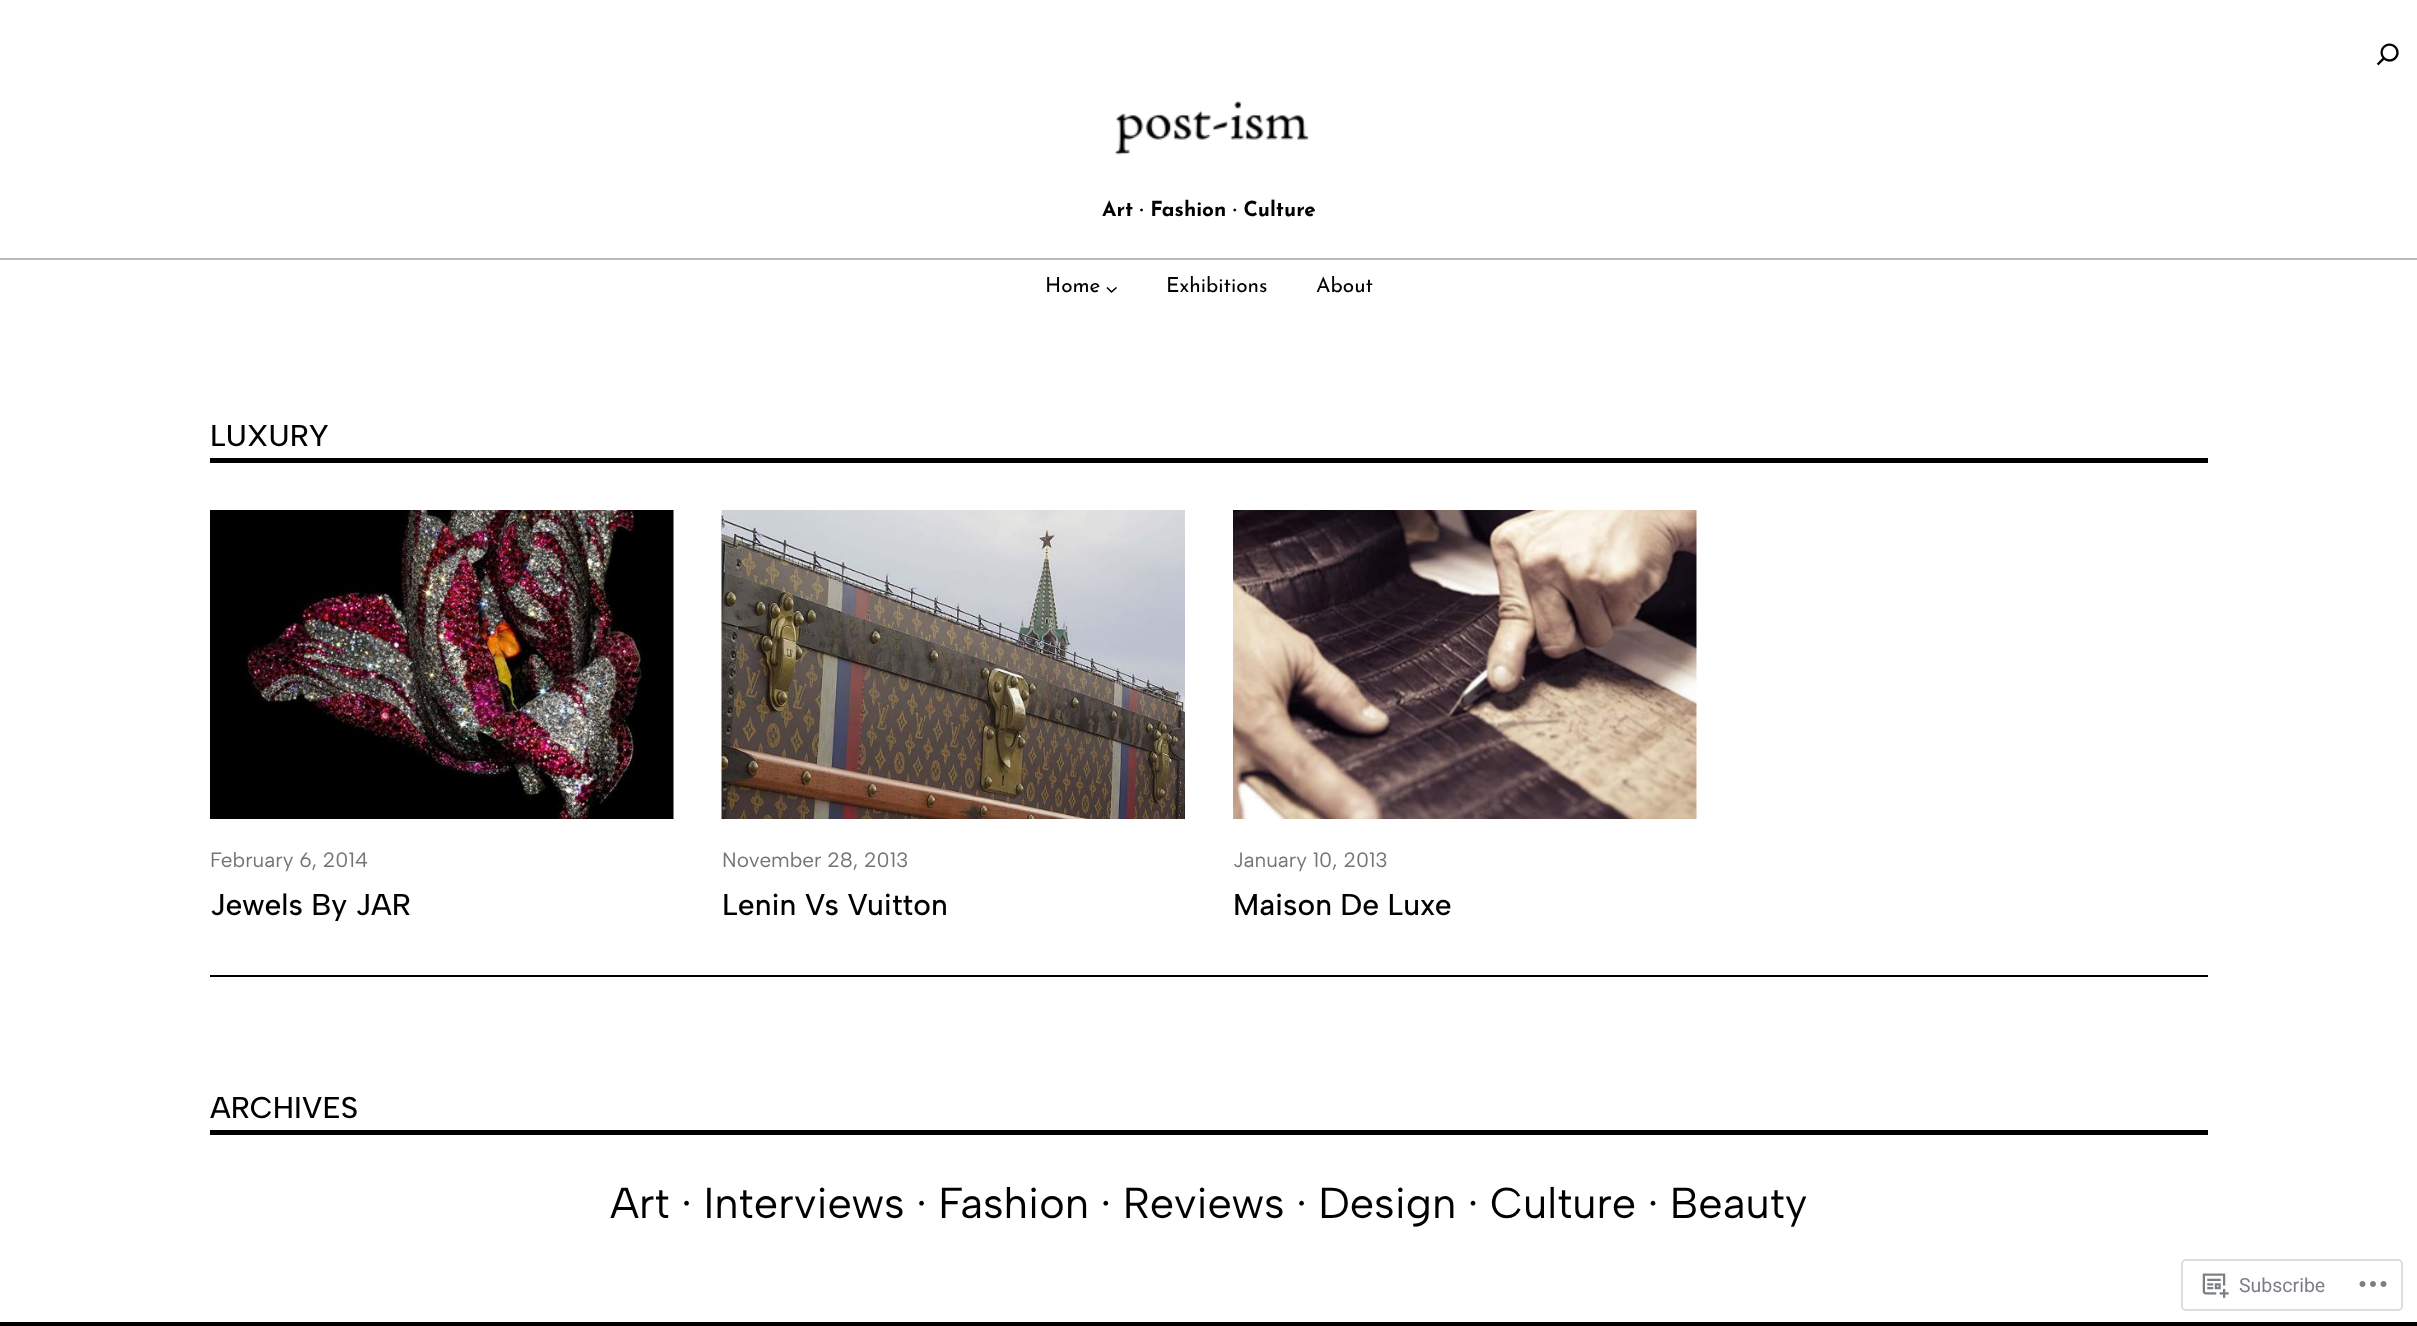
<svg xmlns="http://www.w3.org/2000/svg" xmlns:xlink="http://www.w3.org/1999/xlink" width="2417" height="1326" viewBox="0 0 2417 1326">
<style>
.cls-1{font:bold 20.75px Josefin Sans;fill:#000000}
.cls-2{font:20.75px Josefin Sans;fill:#000000}
.cls-3{font:500 30px Albert Sans;fill:#000000}
.cls-4{font:20.75px Albert Sans;fill:#757575}
.cls-5{font:43.2px Albert Sans;fill:#000000}
.cls-6{font:19.5px Roboto;fill:#7b7f85}
</style>
<rect width="100%" height="100%" fill="#ffffff"/>
<image xlink:href="image0.png" x="2376" y="43" width="23" height="23"/>
<image xlink:href="image1.png" x="1114" y="101" width="195" height="54"/>
<rect fill="#b9b9b9" x="0" y="258" width="2417" height="2"/>
<path fill="none" stroke="#000000" stroke-width="1.6" d="M1107 287.5L1111.5 292L1116.5 287.5"/>
<rect fill="#000000" x="210" y="458" width="1998" height="5"/>
<image xlink:href="image2.png" x="210" y="510" width="464" height="309"/>
<image xlink:href="image3.png" x="721" y="510" width="464" height="309"/>
<image xlink:href="image4.png" x="1233" y="510" width="464" height="309"/>
<rect fill="#000000" x="210" y="975" width="1998" height="2"/>
<rect fill="#000000" x="210" y="1130" width="1998" height="5"/>
<rect fill="#000000" x="0" y="1322" width="2417" height="4"/>
<rect fill="none" stroke="#dddddf" stroke-width="2" x="2182" y="1260" width="220" height="50" rx="4"/>
<image xlink:href="image5.png" x="2202" y="1273" width="27" height="25"/>
<image xlink:href="image6.png" x="2359" y="1281" width="28" height="6"/>
<text class="cls-1" x="1102" y="216">Art · Fashion · Culture</text>
<text class="cls-2" x="1045" y="292">Home</text>
<text class="cls-2" x="1166" y="292">Exhibitions</text>
<text class="cls-2" x="1316" y="292">About</text>
<text class="cls-3" x="210" y="446">LUXURY</text>
<text class="cls-4" x="210" y="867">February 6, 2014</text>
<text class="cls-3" x="210" y="915">Jewels By JAR</text>
<text class="cls-4" x="722" y="867">November 28, 2013</text>
<text class="cls-3" x="722" y="915">Lenin Vs Vuitton</text>
<text class="cls-4" x="1233" y="867">January 10, 2013</text>
<text class="cls-3" x="1233" y="915">Maison De Luxe</text>
<text class="cls-3" x="210" y="1118">ARCHIVES</text>
<text class="cls-5" x="610" y="1218">Art · Interviews · Fashion · Reviews · Design · Culture · Beauty</text>
<text class="cls-6" x="2239" y="1292">Subscribe</text>
</svg>
